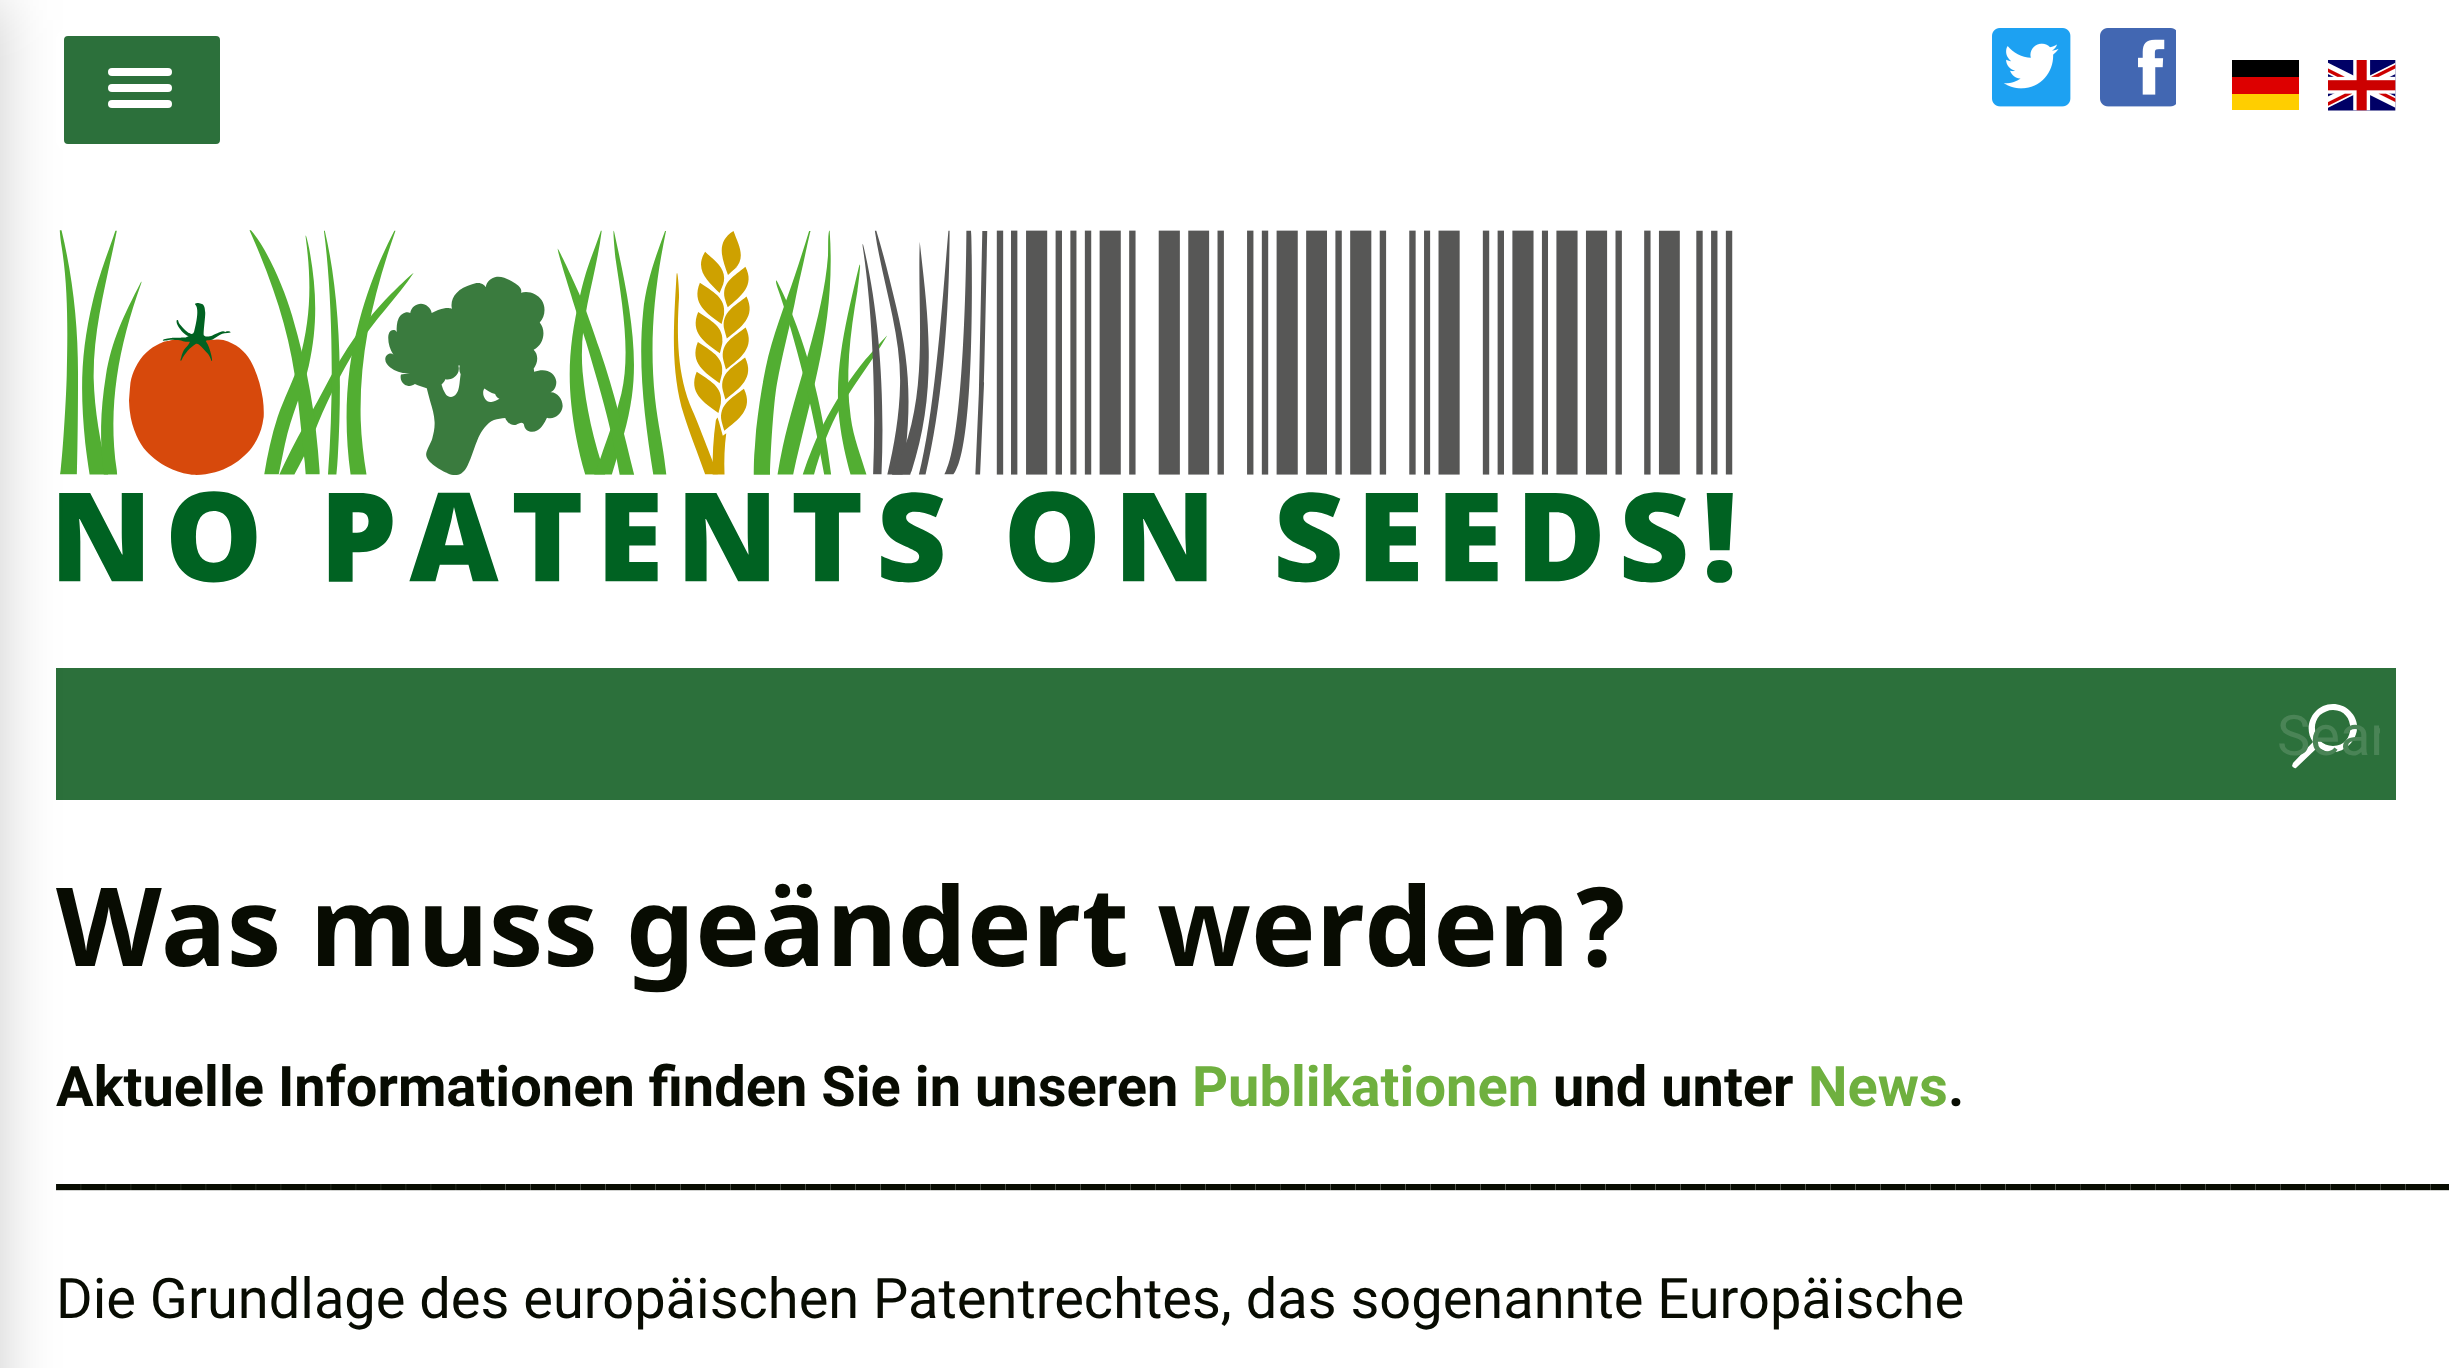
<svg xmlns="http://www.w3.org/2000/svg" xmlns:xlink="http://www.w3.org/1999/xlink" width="2449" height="1368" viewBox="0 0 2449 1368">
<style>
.cls-1{font:56px Roboto;fill:#4a8456}
.cls-2{font:bold 109.4px Noto Sans;fill:#080c02}
.cls-3{font:bold 56px Roboto;fill:#080c02}
.cls-4{font:bold 56px Roboto;fill:#6fb03f}
.cls-5{font:56px Roboto;fill:#080c02}
</style>
<defs>
<clipPath id="clip1"><rect x="2276" y="684" width="104" height="100"/></clipPath>
</defs>
<rect width="100%" height="100%" fill="#ffffff"/>
<image xlink:href="image0.png" x="1992" y="28" width="79" height="79"/>
<image xlink:href="image1.png" x="2100" y="28" width="76" height="79"/>
<rect fill="#ffce00" x="2232" y="94" width="67" height="16"/>
<rect fill="#000000" x="2232" y="60" width="67" height="17"/>
<rect fill="#dd0000" x="2232" y="77" width="67" height="17"/>
<image xlink:href="image2.png" x="2328" y="60" width="68" height="51"/>
<image xlink:href="image3.png" x="59" y="230" width="1674" height="353"/>
<rect fill="#2c703b" x="56" y="668" width="2340" height="132"/>
<rect fill="#000000" fill-opacity="0.2" filter="blur(30px)" x="-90" y="0" width="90" height="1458"/>
<rect fill="#2c703b" stroke="#ffffff" stroke-width="8" x="60" y="32" width="164" height="116" rx="8"/>
<rect fill="#ffffff" x="108" y="84" width="64" height="8" rx="4"/>
<rect fill="#ffffff" x="108" y="68" width="64" height="8" rx="4"/>
<rect fill="#ffffff" x="108" y="100" width="64" height="8" rx="4"/>
<path fill="#ffffff" d="M2333 704C2313 704 2302 727 2313 742L2293 763L2292 766C2293 767 2295 769 2296 768L2318 747C2341 765 2371 732 2350 711C2345 706 2339 704 2333 704ZM2333 746C2317 746 2309 727 2320 715C2324 712 2328 710 2333 710C2356 710 2356 746 2333 746Z"/>
<g clip-path="url(#clip1)">
<text class="cls-1" x="2277" y="755">Sear</text>
</g>
<text class="cls-2" x="56" y="966">Was muss geändert werden?</text>
<text class="cls-3" x="56" y="1106">Aktuelle Informationen finden Sie in unseren</text>
<text class="cls-4" x="1192" y="1106">Publikationen</text>
<text class="cls-3" x="1553" y="1106">und unter</text>
<text class="cls-4" x="1808" y="1106">News</text>
<text class="cls-3" x="1948" y="1106">.</text>
<text class="cls-3" x="56" y="1184">________________________________________________________________________________________________</text>
<text class="cls-5" x="56" y="1318">Die Grundlage des europäischen Patentrechtes, das sogenannte Europäische</text>
</svg>
